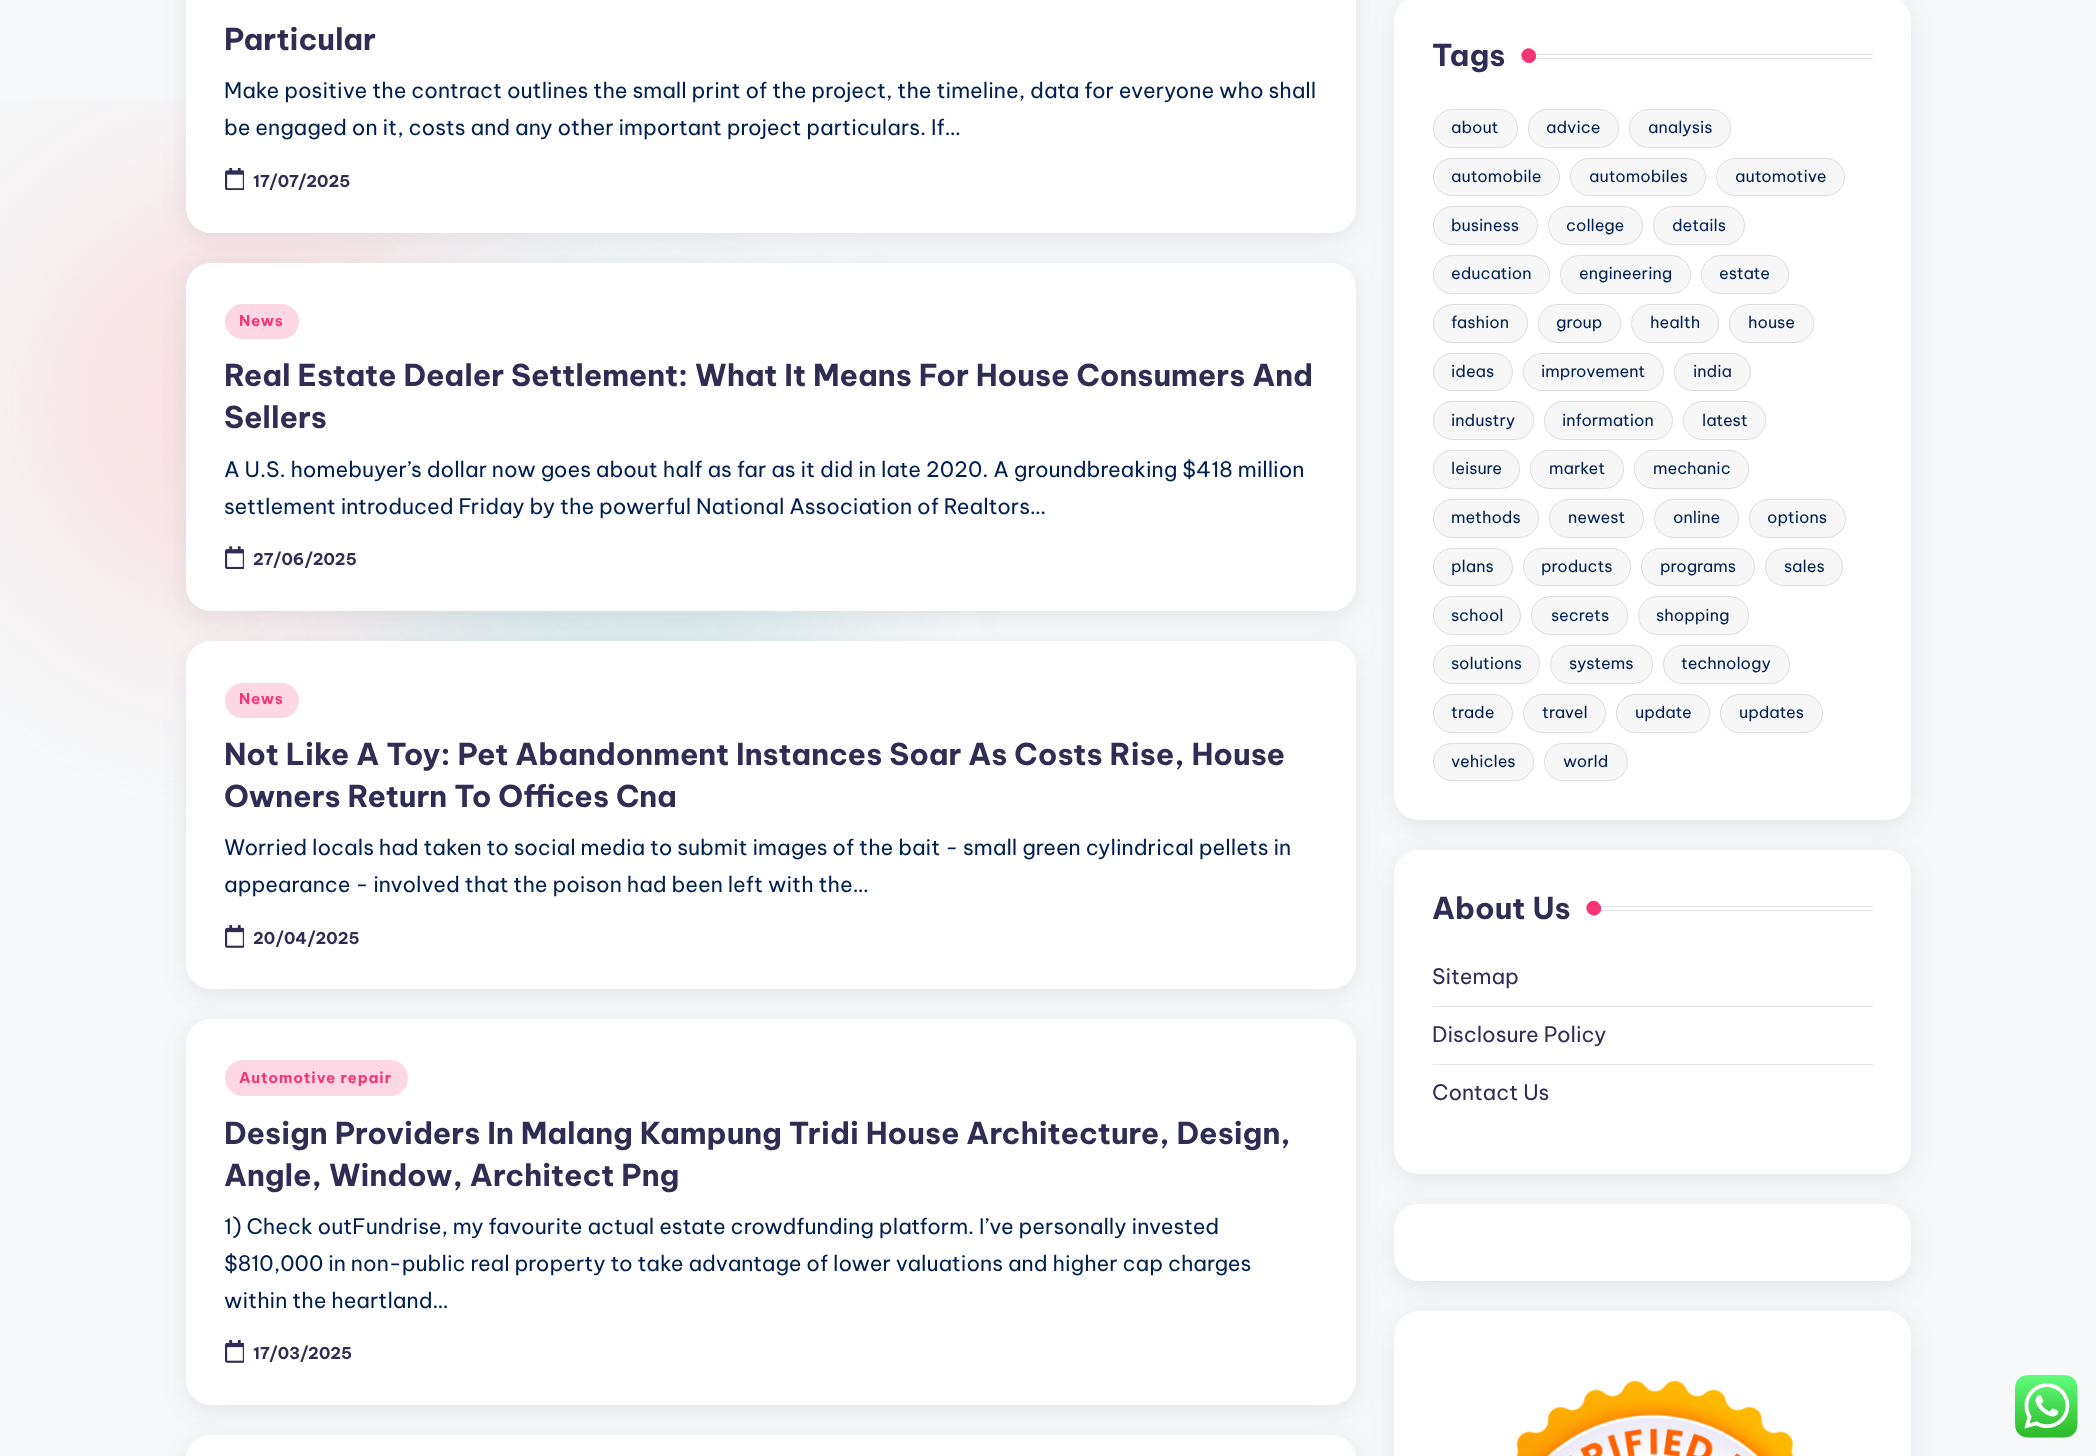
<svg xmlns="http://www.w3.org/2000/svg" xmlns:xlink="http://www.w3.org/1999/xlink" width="2096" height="1456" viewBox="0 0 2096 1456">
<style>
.cls-1{font:bold 30px Be Vietnam Pro;fill:#302d55}
.cls-2{font:21.25px Be Vietnam Pro;fill:#002050}
.cls-3{font:bold 16.25px Be Vietnam Pro;fill:#302d55}
.cls-4{font:bold 15px Be Vietnam Pro;letter-spacing:0.9px;fill:#f43676}
.cls-5{font:16.25px Be Vietnam Pro;fill:#002050}
.cls-6{font:21.25px Be Vietnam Pro;fill:#302d55}
</style>
<defs>
<clipPath id="clip1"><rect x="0" y="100" width="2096" height="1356"/></clipPath>
</defs>
<rect width="100%" height="100%" fill="#f7f8f9"/>
<g clip-path="url(#clip1)">
<rect fill="#f7e3e5" filter="blur(80px)" x="0" y="163" width="480" height="480" rx="240"/>
</g>
<rect fill="#04868b" fill-opacity="0.1" filter="blur(80px)" x="380" y="300" width="480" height="480" rx="240"/>
<rect fill="#454360" fill-opacity="0.1" filter="blur(12.5px)" x="186" y="-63" width="1170" height="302" rx="25"/>
<rect fill="#ffffff" x="186" y="-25" width="1170" height="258" rx="25"/>
<image xlink:href="image0.png" x="225" y="168" width="19" height="22"/>
<rect fill="#454360" fill-opacity="0.1" filter="blur(12.5px)" x="186" y="269" width="1170" height="349" rx="25"/>
<rect fill="#ffffff" x="186" y="263" width="1170" height="348" rx="25"/>
<rect fill="#fdd7e4" x="225" y="304" width="74" height="35" rx="17.5"/>
<image xlink:href="image1.png" x="225" y="546" width="19" height="23"/>
<rect fill="#454360" fill-opacity="0.1" filter="blur(12.5px)" x="186" y="648" width="1170" height="347" rx="25"/>
<rect fill="#ffffff" x="186" y="641" width="1170" height="348" rx="25"/>
<rect fill="#fdd7e4" x="225" y="683" width="74" height="35" rx="17.5"/>
<image xlink:href="image2.png" x="225" y="925" width="19" height="23"/>
<rect fill="#454360" fill-opacity="0.1" filter="blur(12.5px)" x="186" y="1025" width="1170" height="386" rx="25"/>
<rect fill="#ffffff" x="186" y="1019" width="1170" height="386" rx="25"/>
<rect fill="#fdd7e4" x="225" y="1060" width="183" height="36" rx="18"/>
<image xlink:href="image2.png" x="225" y="1340" width="19" height="23"/>
<rect fill="#454360" fill-opacity="0.1" filter="blur(12.5px)" x="186" y="1441" width="1170" height="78" rx="25"/>
<rect fill="#ffffff" x="186" y="1435" width="1170" height="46" rx="25"/>
<rect fill="#454360" fill-opacity="0.1" filter="blur(12.5px)" x="1394" y="3" width="517" height="823" rx="25"/>
<rect fill="#ffffff" x="1394" y="-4" width="517" height="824" rx="25"/>
<rect fill="#e3e3e3" x="1521" y="54" width="352" height="1"/>
<rect fill="#e3e3e3" x="1521" y="58" width="352" height="1"/>
<path fill="#f43676" d="M1523.5 50.5C1530.5 43.5 1540.5 54 1534 61C1527 67.5 1517 57 1523.5 50.5Z"/>
<rect fill="#f7f7f7" x="1433" y="109" width="85" height="39" rx="19.5"/>
<rect fill="none" stroke="#b9b9b9" stroke-opacity="0.4" x="1433.5" y="109.5" width="84" height="38" rx="19"/>
<rect fill="#f7f7f7" x="1528" y="109" width="91" height="39" rx="19.5"/>
<rect fill="none" stroke="#b9b9b9" stroke-opacity="0.4" x="1528.5" y="109.5" width="90" height="38" rx="19"/>
<rect fill="#f7f7f7" x="1629" y="109" width="102" height="39" rx="19.5"/>
<rect fill="none" stroke="#b9b9b9" stroke-opacity="0.4" x="1629.5" y="109.5" width="101" height="38" rx="19"/>
<rect fill="#f7f7f7" x="1433" y="158" width="127" height="38" rx="19"/>
<rect fill="none" stroke="#b9b9b9" stroke-opacity="0.4" x="1433.5" y="158.5" width="126" height="37" rx="18.5"/>
<rect fill="#f7f7f7" x="1570" y="158" width="136" height="38" rx="19"/>
<rect fill="none" stroke="#b9b9b9" stroke-opacity="0.4" x="1570.5" y="158.5" width="135" height="37" rx="18.5"/>
<rect fill="#f7f7f7" x="1716" y="158" width="129" height="38" rx="19"/>
<rect fill="none" stroke="#b9b9b9" stroke-opacity="0.4" x="1716.5" y="158.5" width="128" height="37" rx="18.5"/>
<rect fill="#f7f7f7" x="1433" y="206" width="105" height="39" rx="19.5"/>
<rect fill="none" stroke="#b9b9b9" stroke-opacity="0.4" x="1433.5" y="206.5" width="104" height="38" rx="19"/>
<rect fill="#f7f7f7" x="1548" y="206" width="95" height="39" rx="19.5"/>
<rect fill="none" stroke="#b9b9b9" stroke-opacity="0.4" x="1548.5" y="206.5" width="94" height="38" rx="19"/>
<rect fill="#f7f7f7" x="1653" y="206" width="92" height="39" rx="19.5"/>
<rect fill="none" stroke="#b9b9b9" stroke-opacity="0.4" x="1653.5" y="206.5" width="91" height="38" rx="19"/>
<rect fill="#f7f7f7" x="1433" y="255" width="117" height="39" rx="19.5"/>
<rect fill="none" stroke="#b9b9b9" stroke-opacity="0.4" x="1433.5" y="255.5" width="116" height="38" rx="19"/>
<rect fill="#f7f7f7" x="1560" y="255" width="131" height="39" rx="19.5"/>
<rect fill="none" stroke="#b9b9b9" stroke-opacity="0.4" x="1560.5" y="255.5" width="130" height="38" rx="19"/>
<rect fill="#f7f7f7" x="1701" y="255" width="88" height="39" rx="19.5"/>
<rect fill="none" stroke="#b9b9b9" stroke-opacity="0.4" x="1701.5" y="255.5" width="87" height="38" rx="19"/>
<rect fill="#f7f7f7" x="1433" y="304" width="95" height="39" rx="19.5"/>
<rect fill="none" stroke="#b9b9b9" stroke-opacity="0.4" x="1433.5" y="304.5" width="94" height="38" rx="19"/>
<rect fill="#f7f7f7" x="1538" y="304" width="83" height="39" rx="19.5"/>
<rect fill="none" stroke="#b9b9b9" stroke-opacity="0.4" x="1538.5" y="304.5" width="82" height="38" rx="19"/>
<rect fill="#f7f7f7" x="1631" y="304" width="88" height="39" rx="19.5"/>
<rect fill="none" stroke="#b9b9b9" stroke-opacity="0.4" x="1631.5" y="304.5" width="87" height="38" rx="19"/>
<rect fill="#f7f7f7" x="1729" y="304" width="85" height="39" rx="19.5"/>
<rect fill="none" stroke="#b9b9b9" stroke-opacity="0.4" x="1729.5" y="304.5" width="84" height="38" rx="19"/>
<rect fill="#f7f7f7" x="1433" y="353" width="80" height="38" rx="19"/>
<rect fill="none" stroke="#b9b9b9" stroke-opacity="0.4" x="1433.5" y="353.5" width="79" height="37" rx="18.5"/>
<rect fill="#f7f7f7" x="1523" y="353" width="141" height="38" rx="19"/>
<rect fill="none" stroke="#b9b9b9" stroke-opacity="0.4" x="1523.5" y="353.5" width="140" height="37" rx="18.5"/>
<rect fill="#f7f7f7" x="1674" y="353" width="77" height="38" rx="19"/>
<rect fill="none" stroke="#b9b9b9" stroke-opacity="0.4" x="1674.5" y="353.5" width="76" height="37" rx="18.5"/>
<rect fill="#f7f7f7" x="1433" y="401" width="101" height="39" rx="19.5"/>
<rect fill="none" stroke="#b9b9b9" stroke-opacity="0.4" x="1433.5" y="401.5" width="100" height="38" rx="19"/>
<rect fill="#f7f7f7" x="1544" y="401" width="129" height="39" rx="19.5"/>
<rect fill="none" stroke="#b9b9b9" stroke-opacity="0.4" x="1544.5" y="401.5" width="128" height="38" rx="19"/>
<rect fill="#f7f7f7" x="1683" y="401" width="83" height="39" rx="19.5"/>
<rect fill="none" stroke="#b9b9b9" stroke-opacity="0.4" x="1683.5" y="401.5" width="82" height="38" rx="19"/>
<rect fill="#f7f7f7" x="1433" y="450" width="87" height="39" rx="19.5"/>
<rect fill="none" stroke="#b9b9b9" stroke-opacity="0.4" x="1433.5" y="450.5" width="86" height="38" rx="19"/>
<rect fill="#f7f7f7" x="1530" y="450" width="94" height="39" rx="19.5"/>
<rect fill="none" stroke="#b9b9b9" stroke-opacity="0.4" x="1530.5" y="450.5" width="93" height="38" rx="19"/>
<rect fill="#f7f7f7" x="1634" y="450" width="115" height="39" rx="19.5"/>
<rect fill="none" stroke="#b9b9b9" stroke-opacity="0.4" x="1634.5" y="450.5" width="114" height="38" rx="19"/>
<rect fill="#f7f7f7" x="1433" y="499" width="106" height="39" rx="19.5"/>
<rect fill="none" stroke="#b9b9b9" stroke-opacity="0.4" x="1433.5" y="499.5" width="105" height="38" rx="19"/>
<rect fill="#f7f7f7" x="1549" y="499" width="95" height="39" rx="19.5"/>
<rect fill="none" stroke="#b9b9b9" stroke-opacity="0.4" x="1549.5" y="499.5" width="94" height="38" rx="19"/>
<rect fill="#f7f7f7" x="1654" y="499" width="85" height="39" rx="19.5"/>
<rect fill="none" stroke="#b9b9b9" stroke-opacity="0.4" x="1654.5" y="499.5" width="84" height="38" rx="19"/>
<rect fill="#f7f7f7" x="1749" y="499" width="97" height="39" rx="19.5"/>
<rect fill="none" stroke="#b9b9b9" stroke-opacity="0.4" x="1749.5" y="499.5" width="96" height="38" rx="19"/>
<rect fill="#f7f7f7" x="1433" y="548" width="80" height="38" rx="19"/>
<rect fill="none" stroke="#b9b9b9" stroke-opacity="0.4" x="1433.5" y="548.5" width="79" height="37" rx="18.5"/>
<rect fill="#f7f7f7" x="1523" y="548" width="108" height="38" rx="19"/>
<rect fill="none" stroke="#b9b9b9" stroke-opacity="0.4" x="1523.5" y="548.5" width="107" height="37" rx="18.5"/>
<rect fill="#f7f7f7" x="1641" y="548" width="114" height="38" rx="19"/>
<rect fill="none" stroke="#b9b9b9" stroke-opacity="0.4" x="1641.5" y="548.5" width="113" height="37" rx="18.5"/>
<rect fill="#f7f7f7" x="1765" y="548" width="78" height="38" rx="19"/>
<rect fill="none" stroke="#b9b9b9" stroke-opacity="0.4" x="1765.5" y="548.5" width="77" height="37" rx="18.5"/>
<rect fill="#f7f7f7" x="1433" y="596" width="88" height="39" rx="19.5"/>
<rect fill="none" stroke="#b9b9b9" stroke-opacity="0.4" x="1433.5" y="596.5" width="87" height="38" rx="19"/>
<rect fill="#f7f7f7" x="1531" y="596" width="97" height="39" rx="19.5"/>
<rect fill="none" stroke="#b9b9b9" stroke-opacity="0.4" x="1531.5" y="596.5" width="96" height="38" rx="19"/>
<rect fill="#f7f7f7" x="1638" y="596" width="111" height="39" rx="19.5"/>
<rect fill="none" stroke="#b9b9b9" stroke-opacity="0.4" x="1638.5" y="596.5" width="110" height="38" rx="19"/>
<rect fill="#f7f7f7" x="1433" y="645" width="107" height="39" rx="19.5"/>
<rect fill="none" stroke="#b9b9b9" stroke-opacity="0.4" x="1433.5" y="645.5" width="106" height="38" rx="19"/>
<rect fill="#f7f7f7" x="1550" y="645" width="103" height="39" rx="19.5"/>
<rect fill="none" stroke="#b9b9b9" stroke-opacity="0.4" x="1550.5" y="645.5" width="102" height="38" rx="19"/>
<rect fill="#f7f7f7" x="1663" y="645" width="127" height="39" rx="19.5"/>
<rect fill="none" stroke="#b9b9b9" stroke-opacity="0.4" x="1663.5" y="645.5" width="126" height="38" rx="19"/>
<rect fill="#f7f7f7" x="1433" y="694" width="80" height="39" rx="19.5"/>
<rect fill="none" stroke="#b9b9b9" stroke-opacity="0.4" x="1433.5" y="694.5" width="79" height="38" rx="19"/>
<rect fill="#f7f7f7" x="1523" y="694" width="83" height="39" rx="19.5"/>
<rect fill="none" stroke="#b9b9b9" stroke-opacity="0.4" x="1523.5" y="694.5" width="82" height="38" rx="19"/>
<rect fill="#f7f7f7" x="1616" y="694" width="94" height="39" rx="19.5"/>
<rect fill="none" stroke="#b9b9b9" stroke-opacity="0.4" x="1616.5" y="694.5" width="93" height="38" rx="19"/>
<rect fill="#f7f7f7" x="1720" y="694" width="103" height="39" rx="19.5"/>
<rect fill="none" stroke="#b9b9b9" stroke-opacity="0.4" x="1720.5" y="694.5" width="102" height="38" rx="19"/>
<rect fill="#f7f7f7" x="1433" y="743" width="101" height="38" rx="19"/>
<rect fill="none" stroke="#b9b9b9" stroke-opacity="0.4" x="1433.5" y="743.5" width="100" height="37" rx="18.5"/>
<rect fill="#f7f7f7" x="1544" y="743" width="84" height="38" rx="19"/>
<rect fill="none" stroke="#b9b9b9" stroke-opacity="0.4" x="1544.5" y="743.5" width="83" height="37" rx="18.5"/>
<rect fill="#454360" fill-opacity="0.1" filter="blur(12.5px)" x="1394" y="856" width="517" height="324" rx="25"/>
<rect fill="#ffffff" x="1394" y="850" width="517" height="324" rx="25"/>
<rect fill="#e3e3e3" x="1586" y="906" width="287" height="1"/>
<rect fill="#e3e3e3" x="1586" y="910" width="287" height="1"/>
<path fill="#f43676" d="M1588.5 903C1595.5 896 1605.5 906.5 1599 913.5C1592 920 1582 909.5 1588.5 903Z"/>
<rect fill="#e3e3e3" x="1433" y="1006" width="440" height="1"/>
<rect fill="#e3e3e3" x="1433" y="1064" width="440" height="1"/>
<rect fill="#454360" fill-opacity="0.1" filter="blur(12.5px)" x="1394" y="1210" width="517" height="78" rx="25"/>
<rect fill="#ffffff" x="1394" y="1204" width="517" height="77" rx="25"/>
<rect fill="#454360" fill-opacity="0.1" filter="blur(12.5px)" x="1394" y="1318" width="517" height="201" rx="25"/>
<rect fill="#ffffff" x="1394" y="1311" width="517" height="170" rx="25"/>
<image xlink:href="image3.png" x="1516" y="1380" width="278" height="76"/>
<circle fill="none" stroke="#b9b9b9" stroke-opacity="0.4" cx="2046" cy="1400" r="24.5"/>
<image xlink:href="image4.png" x="2015" y="1375" width="63" height="63"/>
<text class="cls-1" x="224" y="50">Particular</text>
<text class="cls-2"><tspan x="224" y="98">Make positive the contract outlines the small print of the project, the timeline, data for everyone who shall</tspan><tspan x="224" y="135">be engaged on it, costs and any other important project particulars. If…</tspan></text>
<text class="cls-3" x="253" y="187">17/07/2025</text>
<text class="cls-4" x="239" y="326">News</text>
<text class="cls-1"><tspan x="224" y="386">Real Estate Dealer Settlement: What It Means For House Consumers And</tspan><tspan x="224" y="428">Sellers</tspan></text>
<text class="cls-2"><tspan x="224" y="477">A U.S. homebuyer’s dollar now goes about half as far as it did in late 2020. A groundbreaking $418 million</tspan><tspan x="224" y="514">settlement introduced Friday by the powerful National Association of Realtors…</tspan></text>
<text class="cls-3" x="253" y="565">27/06/2025</text>
<text class="cls-4" x="239" y="704">News</text>
<text class="cls-1"><tspan x="224" y="765">Not Like A Toy: Pet Abandonment Instances Soar As Costs Rise, House</tspan><tspan x="224" y="807">Owners Return To Offices Cna</tspan></text>
<text class="cls-2"><tspan x="224" y="855">Worried locals had taken to social media to submit images of the bait - small green cylindrical pellets in</tspan><tspan x="224" y="892">appearance - involved that the poison had been left with the…</tspan></text>
<text class="cls-3" x="253" y="944">20/04/2025</text>
<text class="cls-4" x="239" y="1083">Automotive repair</text>
<text class="cls-1"><tspan x="224" y="1144">Design Providers In Malang Kampung Tridi House Architecture, Design,</tspan><tspan x="224" y="1186">Angle, Window, Architect Png</tspan></text>
<text class="cls-2"><tspan x="224" y="1234">1) Check outFundrise, my favourite actual estate crowdfunding platform. I’ve personally invested</tspan><tspan x="224" y="1271">$810,000 in non-public real property to take advantage of lower valuations and higher cap charges</tspan><tspan x="224" y="1308">within the heartland…</tspan></text>
<text class="cls-3" x="253" y="1359">17/03/2025</text>
<text class="cls-1" x="1432" y="66">Tags</text>
<text class="cls-5" x="1451" y="133">about</text>
<text class="cls-5" x="1546" y="133">advice</text>
<text class="cls-5" x="1648" y="133">analysis</text>
<text class="cls-5" x="1451" y="182">automobile</text>
<text class="cls-5" x="1589" y="182">automobiles</text>
<text class="cls-5" x="1735" y="182">automotive</text>
<text class="cls-5" x="1451" y="231">business</text>
<text class="cls-5" x="1566" y="231">college</text>
<text class="cls-5" x="1672" y="231">details</text>
<text class="cls-5" x="1451" y="279">education</text>
<text class="cls-5" x="1579" y="279">engineering</text>
<text class="cls-5" x="1719" y="279">estate</text>
<text class="cls-5" x="1451" y="328">fashion</text>
<text class="cls-5" x="1556" y="328">group</text>
<text class="cls-5" x="1650" y="328">health</text>
<text class="cls-5" x="1748" y="328">house</text>
<text class="cls-5" x="1451" y="377">ideas</text>
<text class="cls-5" x="1541" y="377">improvement</text>
<text class="cls-5" x="1693" y="377">india</text>
<text class="cls-5" x="1451" y="426">industry</text>
<text class="cls-5" x="1562" y="426">information</text>
<text class="cls-5" x="1702" y="426">latest</text>
<text class="cls-5" x="1451" y="474">leisure</text>
<text class="cls-5" x="1549" y="474">market</text>
<text class="cls-5" x="1653" y="474">mechanic</text>
<text class="cls-5" x="1451" y="523">methods</text>
<text class="cls-5" x="1568" y="523">newest</text>
<text class="cls-5" x="1673" y="523">online</text>
<text class="cls-5" x="1767" y="523">options</text>
<text class="cls-5" x="1451" y="572">plans</text>
<text class="cls-5" x="1541" y="572">products</text>
<text class="cls-5" x="1660" y="572">programs</text>
<text class="cls-5" x="1784" y="572">sales</text>
<text class="cls-5" x="1451" y="621">school</text>
<text class="cls-5" x="1551" y="621">secrets</text>
<text class="cls-5" x="1656" y="621">shopping</text>
<text class="cls-5" x="1451" y="669">solutions</text>
<text class="cls-5" x="1569" y="669">systems</text>
<text class="cls-5" x="1681" y="669">technology</text>
<text class="cls-5" x="1451" y="718">trade</text>
<text class="cls-5" x="1542" y="718">travel</text>
<text class="cls-5" x="1635" y="718">update</text>
<text class="cls-5" x="1739" y="718">updates</text>
<text class="cls-5" x="1451" y="767">vehicles</text>
<text class="cls-5" x="1563" y="767">world</text>
<text class="cls-1" x="1432" y="919">About Us</text>
<text class="cls-6" x="1432" y="984">Sitemap</text>
<text class="cls-6" x="1432" y="1042">Disclosure Policy</text>
<text class="cls-6" x="1432" y="1100">Contact Us</text>
</svg>
